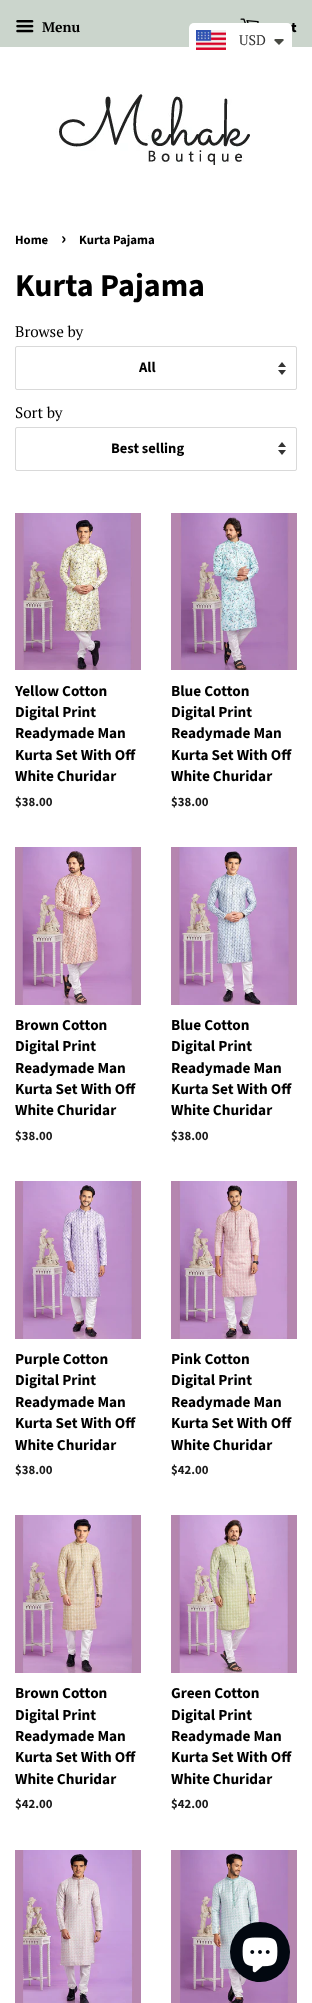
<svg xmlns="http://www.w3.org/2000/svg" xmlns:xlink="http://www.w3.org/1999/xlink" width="312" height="2003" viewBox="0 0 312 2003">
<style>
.cls-1{font:bold 14px PT Serif;fill:#000000}
.cls-2{font:900 14px Source Sans Pro;fill:#000000}
.cls-3{font:14px PT Serif;fill:#333333}
.cls-4{font:bold 12.75px Source Sans Pro;fill:#000000}
.cls-5{font:bold 18px Source Sans Pro;fill:#000000}
.cls-6{font:bold 32px Source Sans Pro;fill:#000000}
.cls-7{font:15.25px PT Serif;fill:#000000}
.cls-8{font:bold 14.5px Source Sans Pro;fill:#000000}
.cls-9{font:bold 15.25px Source Sans Pro;fill:#000000}
.cls-10{font:bold 12.75px Source Sans Pro;fill:#1a1a1a}
</style>
<rect width="100%" height="100%" fill="#ffffff"/>
<rect fill="#cbd5cc" x="0" y="0" width="312" height="47"/>
<image xlink:href="image0.png" x="16" y="20" width="18" height="13"/>
<image xlink:href="image1.png" x="240" y="18" width="19" height="5"/>
<image xlink:href="image2.png" x="56" y="92" width="194" height="73"/>
<image xlink:href="image4.png" x="278" y="362" width="8" height="13"/>
<rect fill="none" stroke="#d9d9d9" x="15.5" y="346.5" width="281" height="43" rx="1.5"/>
<image xlink:href="image4.png" x="278" y="442" width="8" height="13"/>
<rect fill="none" stroke="#d9d9d9" x="15.5" y="427.5" width="281" height="43" rx="1.5"/>
<image xlink:href="image5.png" x="15" y="513" width="126" height="157"/>
<image xlink:href="image6.png" x="171" y="513" width="126" height="157"/>
<image xlink:href="image7.png" x="15" y="847" width="126" height="158"/>
<image xlink:href="image8.png" x="171" y="847" width="126" height="158"/>
<image xlink:href="image9.png" x="15" y="1181" width="126" height="158"/>
<image xlink:href="image10.png" x="171" y="1181" width="126" height="158"/>
<image xlink:href="image11.png" x="15" y="1515" width="126" height="158"/>
<image xlink:href="image12.png" x="171" y="1515" width="126" height="158"/>
<image xlink:href="image13.png" x="15" y="1850" width="126" height="153"/>
<image xlink:href="image14.png" x="171" y="1850" width="126" height="153"/>
<circle fill="#020810" cx="260" cy="1952" r="30"/>
<image xlink:href="image15.png" x="242" y="1937" width="36" height="36"/>
<text class="cls-1" x="42" y="32">Menu</text>
<text class="cls-2" x="291" y="32">t</text>
<rect fill="#ffffff" x="189" y="23" width="103" height="34" rx="5"/>
<image xlink:href="image3.png" x="196" y="30" width="30" height="20"/>
<text class="cls-3" x="239" y="45">USD</text>
<path fill="#474942" d="M276 39C275 39 274.5 39.5 274 40L279 45L284 40L283 39Z"/>
<text class="cls-4" x="15" y="244">Home</text>
<text class="cls-5" x="61" y="244">›</text>
<text class="cls-4" x="79" y="244">Kurta Pajama</text>
<text class="cls-6" x="15" y="296">Kurta Pajama</text>
<text class="cls-7" x="15" y="337">Browse by</text>
<text class="cls-8" x="139" y="372">All</text>
<text class="cls-7" x="15" y="418">Sort by</text>
<text class="cls-8" x="111" y="453">Best selling</text>
<text class="cls-9"><tspan x="15" y="696">Yellow Cotton</tspan><tspan x="15" y="717">Digital Print</tspan><tspan x="15" y="738">Readymade Man</tspan><tspan x="15" y="760">Kurta Set With Off</tspan><tspan x="15" y="781">White Churidar</tspan></text>
<text class="cls-10" x="15" y="806">$38.00</text>
<text class="cls-9"><tspan x="171" y="696">Blue Cotton</tspan><tspan x="171" y="717">Digital Print</tspan><tspan x="171" y="738">Readymade Man</tspan><tspan x="171" y="760">Kurta Set With Off</tspan><tspan x="171" y="781">White Churidar</tspan></text>
<text class="cls-10" x="171" y="806">$38.00</text>
<text class="cls-9"><tspan x="15" y="1030">Brown Cotton</tspan><tspan x="15" y="1051">Digital Print</tspan><tspan x="15" y="1073">Readymade Man</tspan><tspan x="15" y="1094">Kurta Set With Off</tspan><tspan x="15" y="1115">White Churidar</tspan></text>
<text class="cls-10" x="15" y="1140">$38.00</text>
<text class="cls-9"><tspan x="171" y="1030">Blue Cotton</tspan><tspan x="171" y="1051">Digital Print</tspan><tspan x="171" y="1073">Readymade Man</tspan><tspan x="171" y="1094">Kurta Set With Off</tspan><tspan x="171" y="1115">White Churidar</tspan></text>
<text class="cls-10" x="171" y="1140">$38.00</text>
<text class="cls-9"><tspan x="15" y="1364">Purple Cotton</tspan><tspan x="15" y="1385">Digital Print</tspan><tspan x="15" y="1407">Readymade Man</tspan><tspan x="15" y="1428">Kurta Set With Off</tspan><tspan x="15" y="1450">White Churidar</tspan></text>
<text class="cls-10" x="15" y="1474">$38.00</text>
<text class="cls-9"><tspan x="171" y="1364">Pink Cotton</tspan><tspan x="171" y="1385">Digital Print</tspan><tspan x="171" y="1407">Readymade Man</tspan><tspan x="171" y="1428">Kurta Set With Off</tspan><tspan x="171" y="1450">White Churidar</tspan></text>
<text class="cls-10" x="171" y="1474">$42.00</text>
<text class="cls-9"><tspan x="15" y="1698">Brown Cotton</tspan><tspan x="15" y="1720">Digital Print</tspan><tspan x="15" y="1741">Readymade Man</tspan><tspan x="15" y="1762">Kurta Set With Off</tspan><tspan x="15" y="1784">White Churidar</tspan></text>
<text class="cls-10" x="15" y="1808">$42.00</text>
<text class="cls-9"><tspan x="171" y="1698">Green Cotton</tspan><tspan x="171" y="1720">Digital Print</tspan><tspan x="171" y="1741">Readymade Man</tspan><tspan x="171" y="1762">Kurta Set With Off</tspan><tspan x="171" y="1784">White Churidar</tspan></text>
<text class="cls-10" x="171" y="1808">$42.00</text>
</svg>
